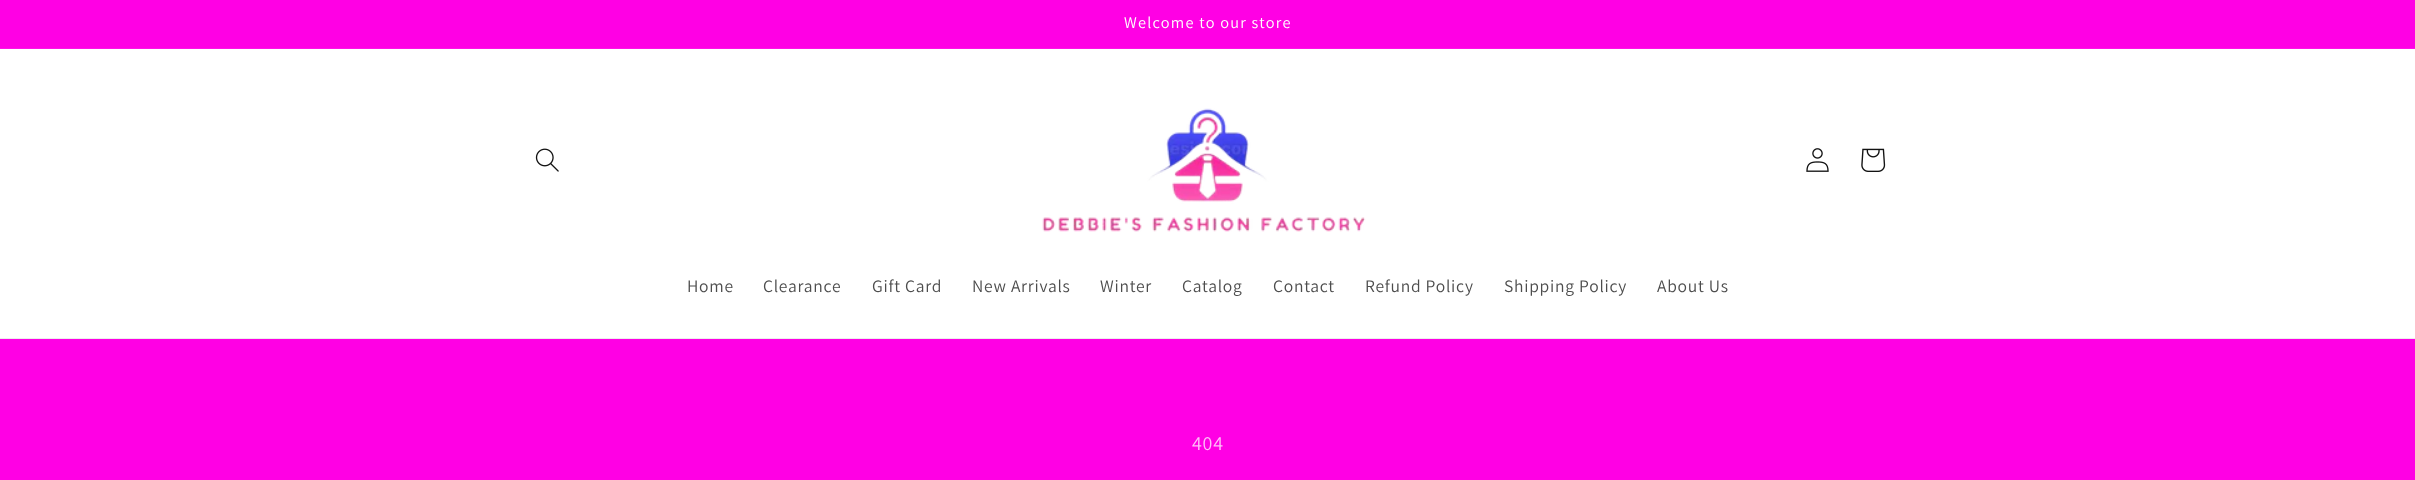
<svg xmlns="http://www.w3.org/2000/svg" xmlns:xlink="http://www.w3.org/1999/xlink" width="2415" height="480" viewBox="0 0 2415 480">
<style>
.cls-1{font:16.25px Assistant;letter-spacing:1.25px;fill:#ffffff}
.cls-2{font:17.5px Assistant;letter-spacing:0.75px;fill:#4d4d4d}
.cls-3{font:20px Assistant;letter-spacing:0.75px;fill:#ffbff8}
</style>
<rect width="100%" height="100%" fill="#ff00e4"/>
<rect fill="#ff14e6" x="0" y="48" width="2415" height="1"/>
<rect fill="#ffffff" x="0" y="49" width="2415" height="289"/>
<rect fill="#ececec" x="0" y="338" width="2415" height="1"/>
<image xlink:href="image0.png" x="535" y="148" width="24" height="24"/>
<image xlink:href="image1.png" x="1042" y="108" width="324" height="124"/>
<image xlink:href="image2.png" x="1806" y="148" width="23" height="24"/>
<image xlink:href="image3.png" x="1861" y="148" width="25" height="24"/>
<text class="cls-1" x="1124" y="28">Welcome to our store</text>
<text class="cls-2" x="687" y="292">Home</text>
<text class="cls-2" x="763" y="292">Clearance</text>
<text class="cls-2" x="872" y="292">Gift Card</text>
<text class="cls-2" x="972" y="292">New Arrivals</text>
<text class="cls-2" x="1100" y="292">Winter</text>
<text class="cls-2" x="1182" y="292">Catalog</text>
<text class="cls-2" x="1273" y="292">Contact</text>
<text class="cls-2" x="1365" y="292">Refund Policy</text>
<text class="cls-2" x="1504" y="292">Shipping Policy</text>
<text class="cls-2" x="1657" y="292">About Us</text>
<text class="cls-3" x="1192" y="450">404</text>
</svg>
